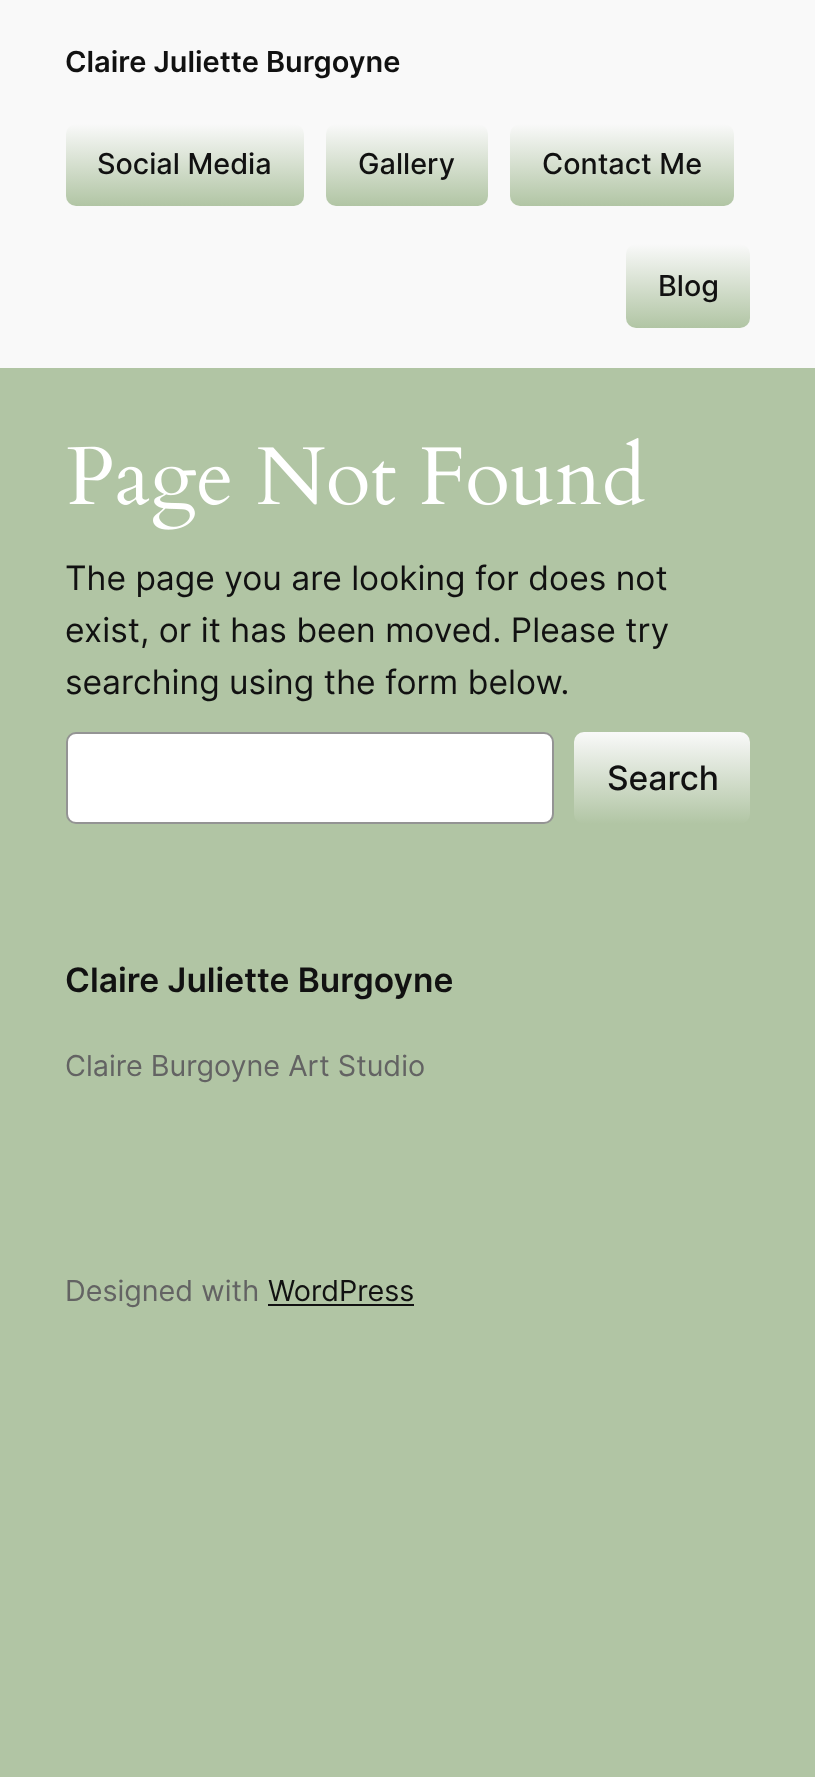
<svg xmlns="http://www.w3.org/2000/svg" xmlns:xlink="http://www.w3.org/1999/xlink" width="815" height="1777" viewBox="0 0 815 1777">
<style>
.cls-1{font:600 29px Inter;fill:#111111}
.cls-2{font:500 28.75px Inter;fill:#111111}
.cls-3{font:33.6px Inter;fill:#111111}
.cls-4{font:500 33.6px Inter;fill:#111111}
.cls-5{font:600 33.6px Inter;fill:#111111}
.cls-6{font:28.75px Inter;fill:#636363}
.cls-7{font:28.75px Inter;fill:#111111}
</style>
<defs>
<linearGradient id="g1" gradientUnits="userSpaceOnUse" x1="185" y1="206" x2="185" y2="124"><stop offset="0" stop-color="#b1c5a4"/><stop offset="1" stop-color="#f9f9f9"/></linearGradient>
<linearGradient id="g2" gradientUnits="userSpaceOnUse" x1="407" y1="206" x2="407" y2="124"><stop offset="0" stop-color="#b1c5a4"/><stop offset="1" stop-color="#f9f9f9"/></linearGradient>
<linearGradient id="g3" gradientUnits="userSpaceOnUse" x1="622" y1="206" x2="622" y2="124"><stop offset="0" stop-color="#b1c5a4"/><stop offset="1" stop-color="#f9f9f9"/></linearGradient>
<linearGradient id="g4" gradientUnits="userSpaceOnUse" x1="688" y1="328" x2="688" y2="244"><stop offset="0" stop-color="#b1c5a4"/><stop offset="1" stop-color="#f9f9f9"/></linearGradient>
<linearGradient id="g5" gradientUnits="userSpaceOnUse" x1="662" y1="824" x2="662" y2="732"><stop offset="0" stop-color="#b1c5a4"/><stop offset="1" stop-color="#f9f9f9"/></linearGradient>
</defs>
<rect width="100%" height="100%" fill="#b1c5a4"/>
<rect fill="#f9f9f9" x="0" y="0" width="815" height="368"/>
<rect fill="url(#g1)" x="66" y="124" width="238" height="82" rx="10"/>
<rect fill="url(#g2)" x="326" y="124" width="162" height="82" rx="10"/>
<rect fill="url(#g3)" x="510" y="124" width="224" height="82" rx="10"/>
<rect fill="url(#g4)" x="626" y="244" width="124" height="84" rx="10"/>
<image xlink:href="image0.png" x="67" y="438" width="578" height="92"/>
<rect fill="#ffffff" stroke="#949494" stroke-width="2" x="67" y="733" width="486" height="90" rx="9"/>
<rect fill="url(#g5)" x="574" y="732" width="176" height="92" rx="10"/>
<rect fill="#111111" x="268" y="1304" width="146" height="2"/>
<text class="cls-1" x="65" y="72">Claire Juliette Burgoyne</text>
<text class="cls-2" x="97" y="174">Social Media</text>
<text class="cls-2" x="358" y="174">Gallery</text>
<text class="cls-2" x="542" y="174">Contact Me</text>
<text class="cls-2" x="658" y="296">Blog</text>
<text class="cls-3"><tspan x="65" y="590">The page you are looking for does not</tspan><tspan x="65" y="642">exist, or it has been moved. Please try</tspan><tspan x="65" y="694">searching using the form below.</tspan></text>
<text class="cls-4" x="607" y="790">Search</text>
<text class="cls-5" x="65" y="992">Claire Juliette Burgoyne</text>
<text class="cls-6" x="65" y="1076">Claire Burgoyne Art Studio</text>
<text class="cls-6" x="65" y="1301">Designed with</text>
<text class="cls-7" x="268" y="1301">WordPress</text>
</svg>
